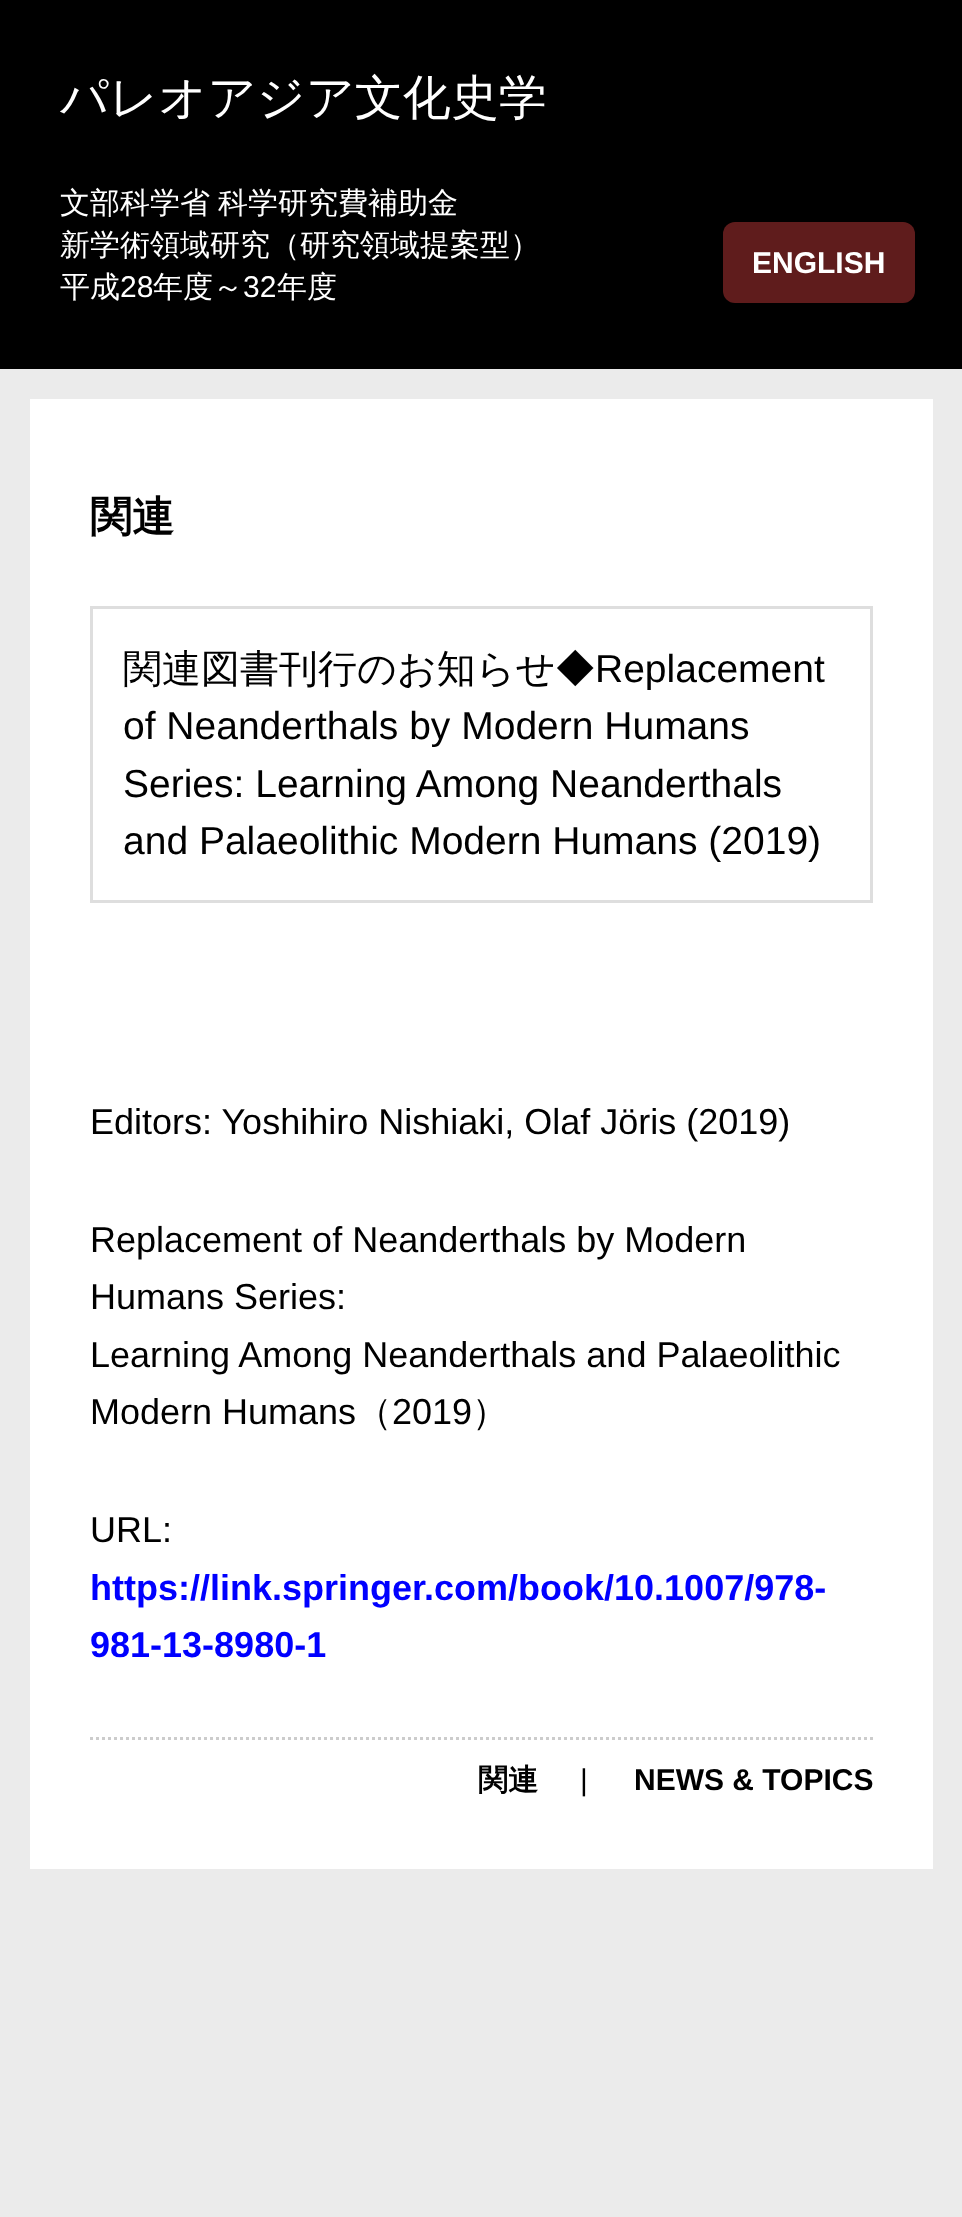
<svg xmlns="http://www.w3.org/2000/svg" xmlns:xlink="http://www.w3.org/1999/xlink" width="962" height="2217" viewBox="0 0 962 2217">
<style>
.cls-1{font:500 48px WenQuanYi Zen Hei;fill:#ffffff}
.cls-2{font:500 30px WenQuanYi Zen Hei;fill:#ffffff}
.cls-3{font:30px Liberation Sans;fill:#ffffff}
.cls-4{font:bold 30px Liberation Sans;fill:#ffffff}
.cls-5{font:bold 42px WenQuanYi Zen Hei;fill:#000000}
.cls-6{font:500 39px WenQuanYi Zen Hei;fill:#000000}
.cls-7{font:39px Liberation Sans;fill:#000000}
.cls-8{font:36px Liberation Sans;fill:#000000}
.cls-9{font:500 36px WenQuanYi Zen Hei;fill:#000000}
.cls-10{font:bold 36px Liberation Sans;fill:#0000ff}
.cls-11{font:bold 30px WenQuanYi Zen Hei;fill:#000000}
.cls-12{font:30px Liberation Sans;fill:#000000}
.cls-13{font:bold 30px Liberation Sans;fill:#000000}
</style>
<rect width="100%" height="100%" fill="#ebebeb"/>
<rect fill="#000000" x="0" y="0" width="962" height="369"/>
<rect fill="#5f1c1c" x="723" y="222" width="192" height="81" rx="12"/>
<rect fill="#ffffff" x="30" y="399" width="903" height="1470"/>
<rect fill="none" stroke="#dedede" stroke-width="3" x="91.5" y="607.5" width="780" height="294"/>
<path fill="none" stroke="#cccccc" stroke-width="3" stroke-dasharray="3 3" d="M90 1738.5H873"/>
<text class="cls-1" x="60" y="114">パレオアジア文化史学</text>
<text class="cls-2"><tspan x="60" y="213" word-spacing="-1">文部科学省 科学研究費補助金</tspan><tspan x="60" y="255">新学術領域研究（研究領域提案型）</tspan><tspan x="60" y="297">平成</tspan></text>
<text class="cls-3" x="120" y="297">28</text>
<text class="cls-2" x="153" y="297">年度～</text>
<text class="cls-3" x="243" y="297">32</text>
<text class="cls-2" x="277" y="297">年度</text>
<text class="cls-4" x="752" y="273">ENGLISH</text>
<text class="cls-5" x="90" y="531">関連</text>
<text class="cls-6" x="123" y="682">関連図書刊行のお知らせ◆</text>
<text class="cls-7" x="595" y="682">Replacement</text>
<text class="cls-7"><tspan x="123" y="739">of Neanderthals by Modern Humans</tspan><tspan x="123" y="797">Series: Learning Among Neanderthals</tspan><tspan x="123" y="854">and Palaeolithic Modern Humans (2019)</tspan></text>
<text class="cls-8" x="90" y="1134">Editors: Yoshihiro Nishiaki, Olaf Jöris (2019)</text>
<text class="cls-8"><tspan x="90" y="1252">Replacement of Neanderthals by Modern</tspan><tspan x="90" y="1309">Humans Series:</tspan><tspan x="90" y="1367">Learning Among Neanderthals and Palaeolithic</tspan><tspan x="90" y="1424">Modern Humans</tspan></text>
<text class="cls-9" x="356" y="1424">（</text>
<text class="cls-8" x="392" y="1424">2019</text>
<text class="cls-9" x="472" y="1424">）</text>
<text class="cls-8" x="90" y="1542">URL:</text>
<text class="cls-10"><tspan x="90" y="1600">https://link.springer.com/book/10.1007/978-</tspan><tspan x="90" y="1657">981-13-8980-1</tspan></text>
<text class="cls-11" x="478" y="1790">関連</text>
<text class="cls-12" x="580" y="1790">|</text>
<text class="cls-13" x="634" y="1790">NEWS &amp; TOPICS</text>
</svg>
